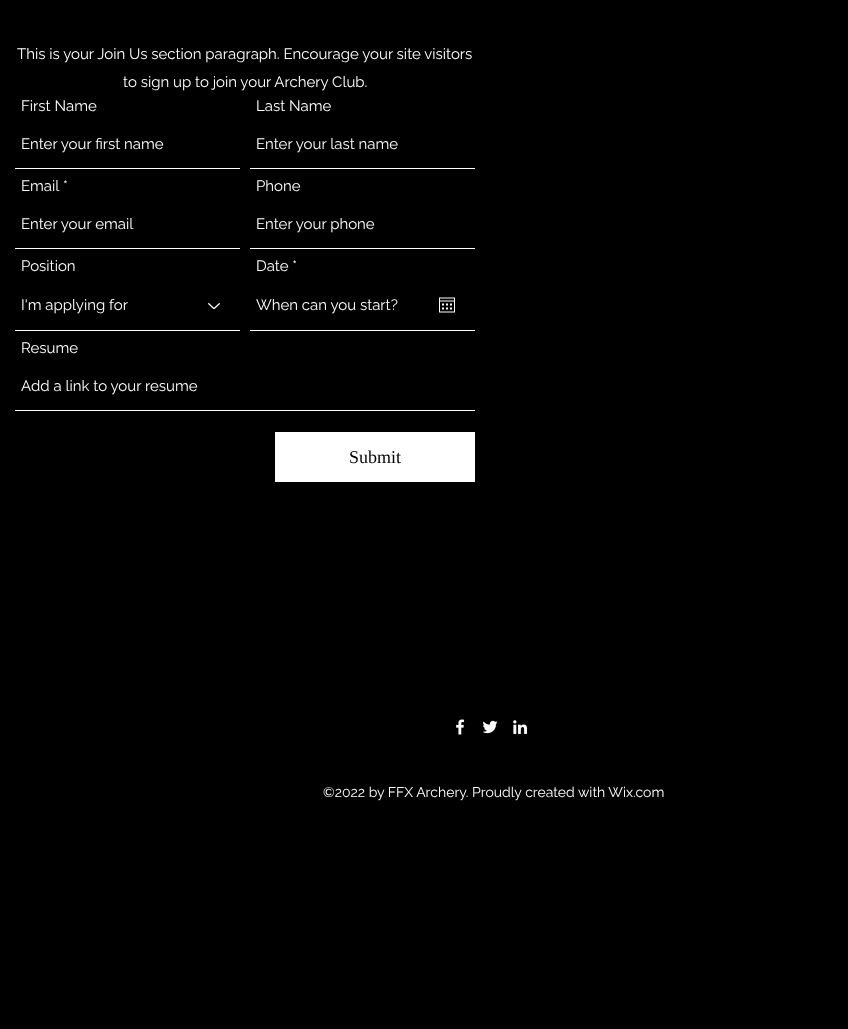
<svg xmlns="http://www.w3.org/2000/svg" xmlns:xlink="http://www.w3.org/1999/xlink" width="848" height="1029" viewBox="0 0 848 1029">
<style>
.cls-1{font:15px Raleway;fill:#ffffff}
.cls-2{font:18px Liberation Serif;fill:#000000}
.cls-3{font:14px Raleway;fill:#ffffff}
</style>
<rect width="100%" height="100%" fill="#000000"/>
<rect fill="#ffffff" x="15" y="168" width="225" height="1"/>
<rect fill="#ffffff" x="250" y="168" width="225" height="1"/>
<rect fill="#ffffff" x="15" y="248" width="225" height="1"/>
<rect fill="#ffffff" x="250" y="248" width="225" height="1"/>
<rect fill="#ffffff" x="15" y="330" width="225" height="1"/>
<image xlink:href="image0.png" x="208" y="303" width="12" height="6"/>
<rect fill="#ffffff" x="250" y="330" width="225" height="1"/>
<image xlink:href="image1.png" x="439" y="297" width="16" height="16"/>
<rect fill="#ffffff" x="15" y="410" width="460" height="1"/>
<rect fill="#ffffff" x="275" y="432" width="200" height="50"/>
<image xlink:href="image2.png" x="456" y="719" width="9" height="16"/>
<image xlink:href="image3.png" x="482" y="720" width="16" height="14"/>
<image xlink:href="image4.png" x="513" y="720" width="15" height="15"/>
<text class="cls-1" x="17" y="59">This is your Join Us section paragraph. Encourage your site visitors</text>
<text class="cls-1" x="123" y="87">to sign up to join your Archery Club.</text>
<text class="cls-1" x="21" y="111">First Name</text>
<text class="cls-1" x="21" y="149">Enter your first name</text>
<text class="cls-1" x="256" y="111">Last Name</text>
<text class="cls-1" x="256" y="149">Enter your last name</text>
<text class="cls-1" x="21" y="191">Email</text>
<text class="cls-1" x="63" y="191">*</text>
<text class="cls-1" x="21" y="229">Enter your email</text>
<text class="cls-1" x="256" y="191">Phone</text>
<text class="cls-1" x="256" y="229">Enter your phone</text>
<text class="cls-1" x="21" y="271">Position</text>
<text class="cls-1" x="21" y="310">I'm applying for</text>
<text class="cls-1" x="256" y="271">Date *</text>
<text class="cls-1" x="256" y="310">When can you start?</text>
<text class="cls-1" x="21" y="353">Resume</text>
<text class="cls-1" x="21" y="391">Add a link to your resume</text>
<text class="cls-2" x="349" y="463">Submit</text>
<text class="cls-3" x="323" y="797">©2022 by FFX Archery. Proudly created with Wix.com</text>
</svg>
